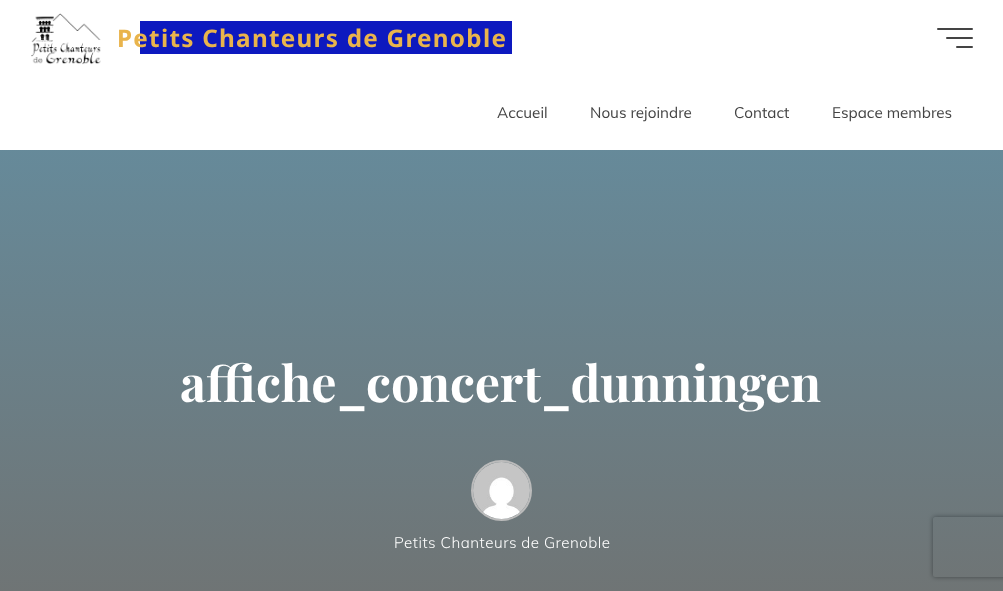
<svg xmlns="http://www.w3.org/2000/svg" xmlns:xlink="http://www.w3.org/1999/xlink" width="1003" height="591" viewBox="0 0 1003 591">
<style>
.cls-1{font:bold 24.3px Noto Sans;letter-spacing:1.25px;fill:#e9b44c}
.cls-2{font:15.25px Muli;fill:#444444}
.cls-3{font:bold 50.1px Playfair Display;fill:#ffffff}
.cls-4{font:300 15.25px Muli;letter-spacing:0.5px;fill:#ffffff}
</style>
<defs>
<clipPath id="clip1"><path d="M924 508H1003V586H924ZM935 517H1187C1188 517 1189 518 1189 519V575C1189 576 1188 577 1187 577H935C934 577 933 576 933 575V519C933 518 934 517 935 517Z" clip-rule="evenodd"/></clipPath>
<linearGradient id="g1" gradientUnits="userSpaceOnUse" x1="501" y1="150" x2="502" y2="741"><stop offset="0" stop-color="#08415c" stop-opacity="0.6"/><stop offset="1" stop-color="#1c110a" stop-opacity="0.6"/></linearGradient>
</defs>
<rect width="100%" height="100%" fill="#f3f7f6"/>
<rect fill="#ffffff" x="0" y="0" width="1003" height="150"/>
<image xlink:href="image0.png" x="31" y="13" width="70" height="52"/>
<rect fill="#0d19bf" x="140" y="21" width="372" height="33"/>
<rect fill="#444444" x="937" y="28" width="36" height="2" rx="1"/>
<rect fill="#444444" x="946" y="37" width="27" height="2" rx="1"/>
<rect fill="#444444" x="956" y="46" width="17" height="2" rx="1"/>
<g clip-path="url(#clip1)">
<rect fill="#808080" filter="blur(2.5px)" x="933" y="517" width="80" height="60" rx="2"/>
</g>
<rect fill="url(#g1)" x="0" y="150" width="1003" height="441"/>
<circle fill="none" stroke="#bbbbbb" stroke-width="2" cx="501.5" cy="490.5" r="29.5"/>
<image xlink:href="image1.png" x="473" y="462" width="57" height="57"/>
<text class="cls-1" x="117" y="47">Petits Chanteurs de Grenoble</text>
<text class="cls-2" x="497" y="118">Accueil</text>
<text class="cls-2" x="590" y="118">Nous rejoindre</text>
<text class="cls-2" x="734" y="118">Contact</text>
<text class="cls-2" x="832" y="118">Espace membres</text>
<text class="cls-3" x="180" y="402">affiche_concert_dunningen</text>
<text class="cls-4" x="394" y="548">Petits Chanteurs de Grenoble</text>
</svg>
